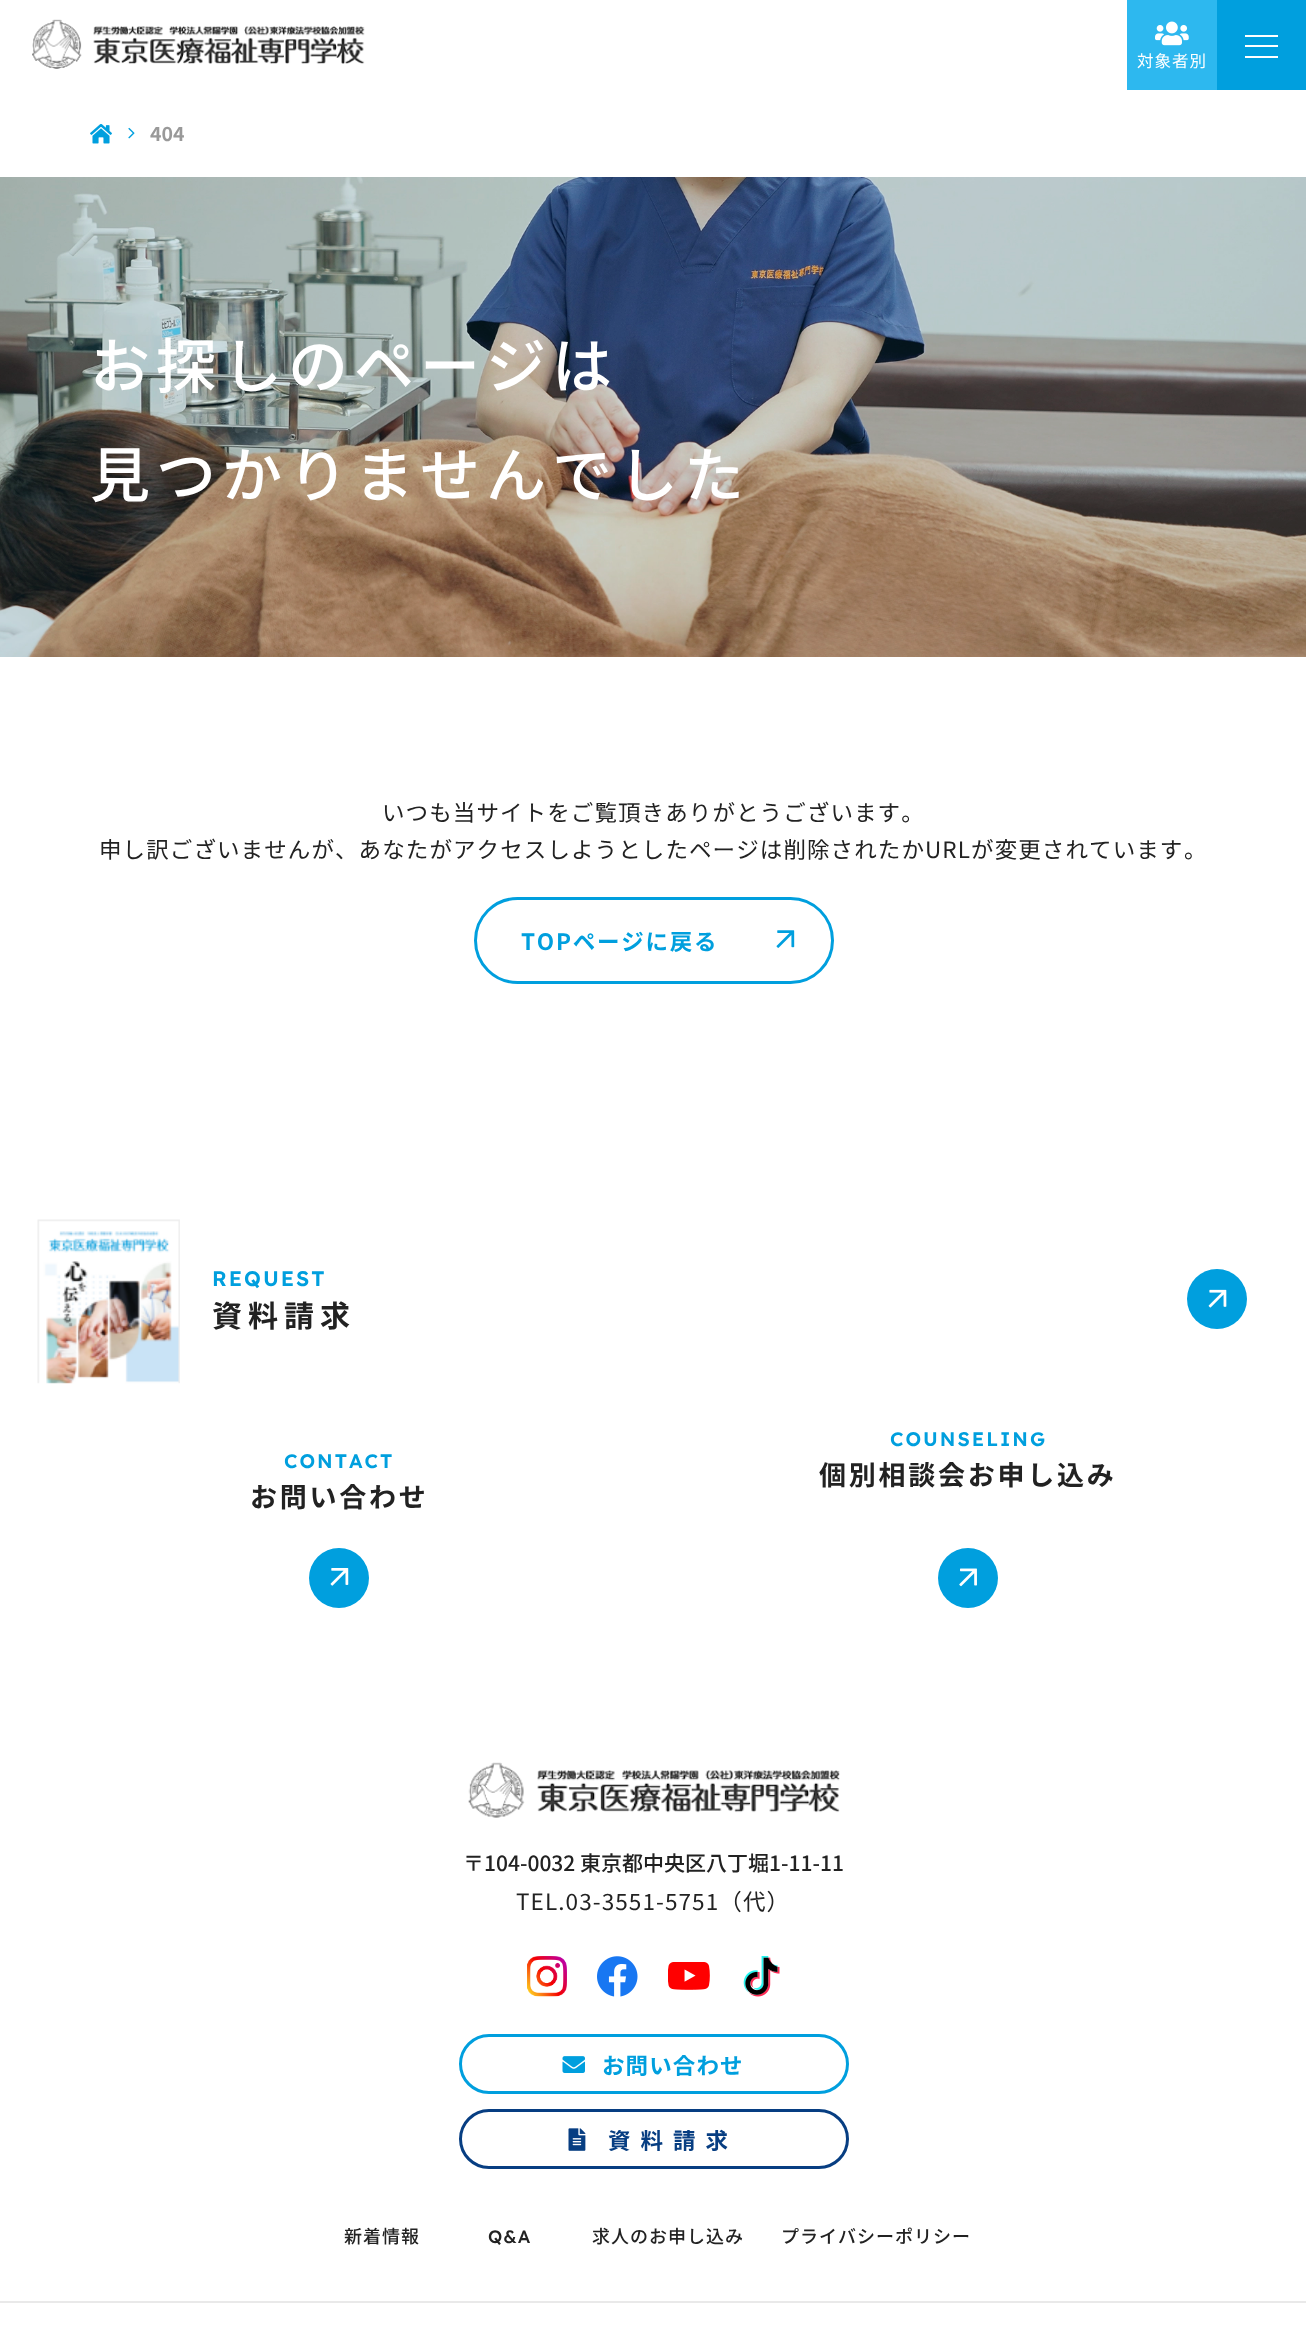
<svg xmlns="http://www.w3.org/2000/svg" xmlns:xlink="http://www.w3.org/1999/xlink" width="1306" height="2333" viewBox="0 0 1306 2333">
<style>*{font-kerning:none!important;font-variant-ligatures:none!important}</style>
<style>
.cls-1{font:16.5px Noto Sans JP;letter-spacing:1px;fill:#ffffff}
.cls-2{font:bold 19.5px Noto Sans JP;fill:#999999}
.cls-3{font:500 60px Noto Sans JP;letter-spacing:6px;fill:#ffffff}
.cls-4{font:22.5px Noto Sans JP;letter-spacing:1.1px;fill:#222222}
.cls-5{font:bold 22.5px Noto Sans JP;letter-spacing:1.75px;fill:#009fde}
.cls-6{font:600 21px Lexend Deca;letter-spacing:2px;fill:#009fde}
.cls-7{font:bold 30px Noto Sans JP;letter-spacing:6px;fill:#222222}
.cls-8{font:600 19.5px Lexend Deca;letter-spacing:2px;fill:#009fde}
.cls-9{font:bold 27px Noto Sans JP;letter-spacing:2.75px;fill:#222222}
.cls-10{font:500 21px Noto Sans JP;fill:#222222}
.cls-11{font:bold 22.5px Noto Sans JP;letter-spacing:1.1px;fill:#009fde}
.cls-12{font:bold 22.5px Noto Sans JP;letter-spacing:10px;fill:#073e82}
.cls-13{font:500 18px Noto Sans JP;letter-spacing:1px;fill:#222222}
.cls-14{font:500 18px Lexend Deca;letter-spacing:1px;fill:#222222}
</style>
<rect width="100%" height="100%" fill="#ffffff"/>
<image xlink:href="image0.png" x="32" y="19" width="333" height="50"/>
<rect fill="#2db8ef" x="1127" y="0" width="90" height="90"/>
<image xlink:href="image1.png" x="1155" y="21" width="34" height="25"/>
<rect fill="#009fde" x="1217" y="0" width="89" height="90"/>
<rect fill="#ffffff" x="1245" y="45" width="33" height="2"/>
<rect fill="#ffffff" x="1245" y="35" width="33" height="2"/>
<rect fill="#ffffff" x="1245" y="56" width="33" height="2"/>
<image xlink:href="image2.png" x="90" y="124" width="22" height="20"/>
<image xlink:href="image3.png" x="128" y="127" width="7" height="12"/>
<image xlink:href="image4.png" x="0" y="177" width="1306" height="480"/>
<rect fill="none" stroke="#009fde" stroke-width="3" x="475.5" y="898.5" width="357" height="84" rx="42"/>
<image xlink:href="image5.png" x="776" y="930" width="19" height="18"/>
<image xlink:href="image6.png" x="37" y="1219" width="143" height="165"/>
<circle fill="#009fde" cx="1217" cy="1299" r="30"/>
<image xlink:href="image7.png" x="1208" y="1289" width="19" height="19"/>
<circle fill="#009fde" cx="339" cy="1578" r="30"/>
<image xlink:href="image8.png" x="330" y="1568" width="19" height="18"/>
<circle fill="#009fde" cx="968" cy="1578" r="30"/>
<image xlink:href="image9.png" x="959" y="1568" width="18" height="19"/>
<rect fill="#e9e9e9" x="0" y="2301" width="1306" height="2"/>
<image xlink:href="image10.png" x="468" y="1762" width="372" height="56"/>
<image xlink:href="image11.png" x="527" y="1956" width="40" height="41"/>
<image xlink:href="image12.png" x="597" y="1956" width="41" height="41"/>
<image xlink:href="image13.png" x="668" y="1962" width="42" height="28"/>
<image xlink:href="image14.png" x="743" y="1956" width="37" height="41"/>
<rect fill="none" stroke="#009fde" stroke-width="3" x="460.5" y="2035.5" width="387" height="57" rx="28.5"/>
<image xlink:href="image15.png" x="562" y="2056" width="23" height="17"/>
<rect fill="none" stroke="#073e82" stroke-width="3" x="460.5" y="2110.5" width="387" height="57" rx="28.5"/>
<image xlink:href="image16.png" x="568" y="2128" width="18" height="23"/>
<text class="cls-1" x="1137" y="67">対象者別</text>
<text class="cls-2" x="150" y="141">404</text>
<text class="cls-3"><tspan x="90" y="388">お探しのページは</tspan><tspan x="90" y="497">見つかりませんでした</tspan></text>
<text class="cls-4" x="382" y="821">いつも当サイトをご覧頂きありがとうございます。</text>
<text class="cls-4" x="99" y="858">申し訳ございませんが、あなたがアクセスしようとしたページは削除されたかURLが変更されています</text>
<text class="cls-4" x="1184" y="858">。</text>
<text class="cls-5" x="521" y="950">TOPページに戻る</text>
<text class="cls-6" x="212" y="1286">REQUEST</text>
<text class="cls-7" x="212" y="1327">資料請求</text>
<text class="cls-8" x="284" y="1468">CONTACT</text>
<text class="cls-9" x="250" y="1507">お問い合わせ</text>
<text class="cls-8" x="890" y="1446">COUNSELING</text>
<text class="cls-9" x="819" y="1485">個別相談会お申し込み</text>
<text class="cls-10" x="463" y="1871">〒104-0032 東京都中央区八丁堀1-11-11</text>
<text class="cls-4" x="516" y="1910">TEL.03-3551-5751（代）</text>
<text class="cls-11" x="602" y="2074">お問い合わせ</text>
<text class="cls-12" x="608" y="2149">資料請求</text>
<text class="cls-13" x="344" y="2243">新着情報</text>
<text class="cls-14" x="488" y="2243">Q&amp;A</text>
<text class="cls-13" x="592" y="2243">求人のお申し込み</text>
<text class="cls-13" x="781" y="2243">プライバシーポリシー</text>
</svg>
